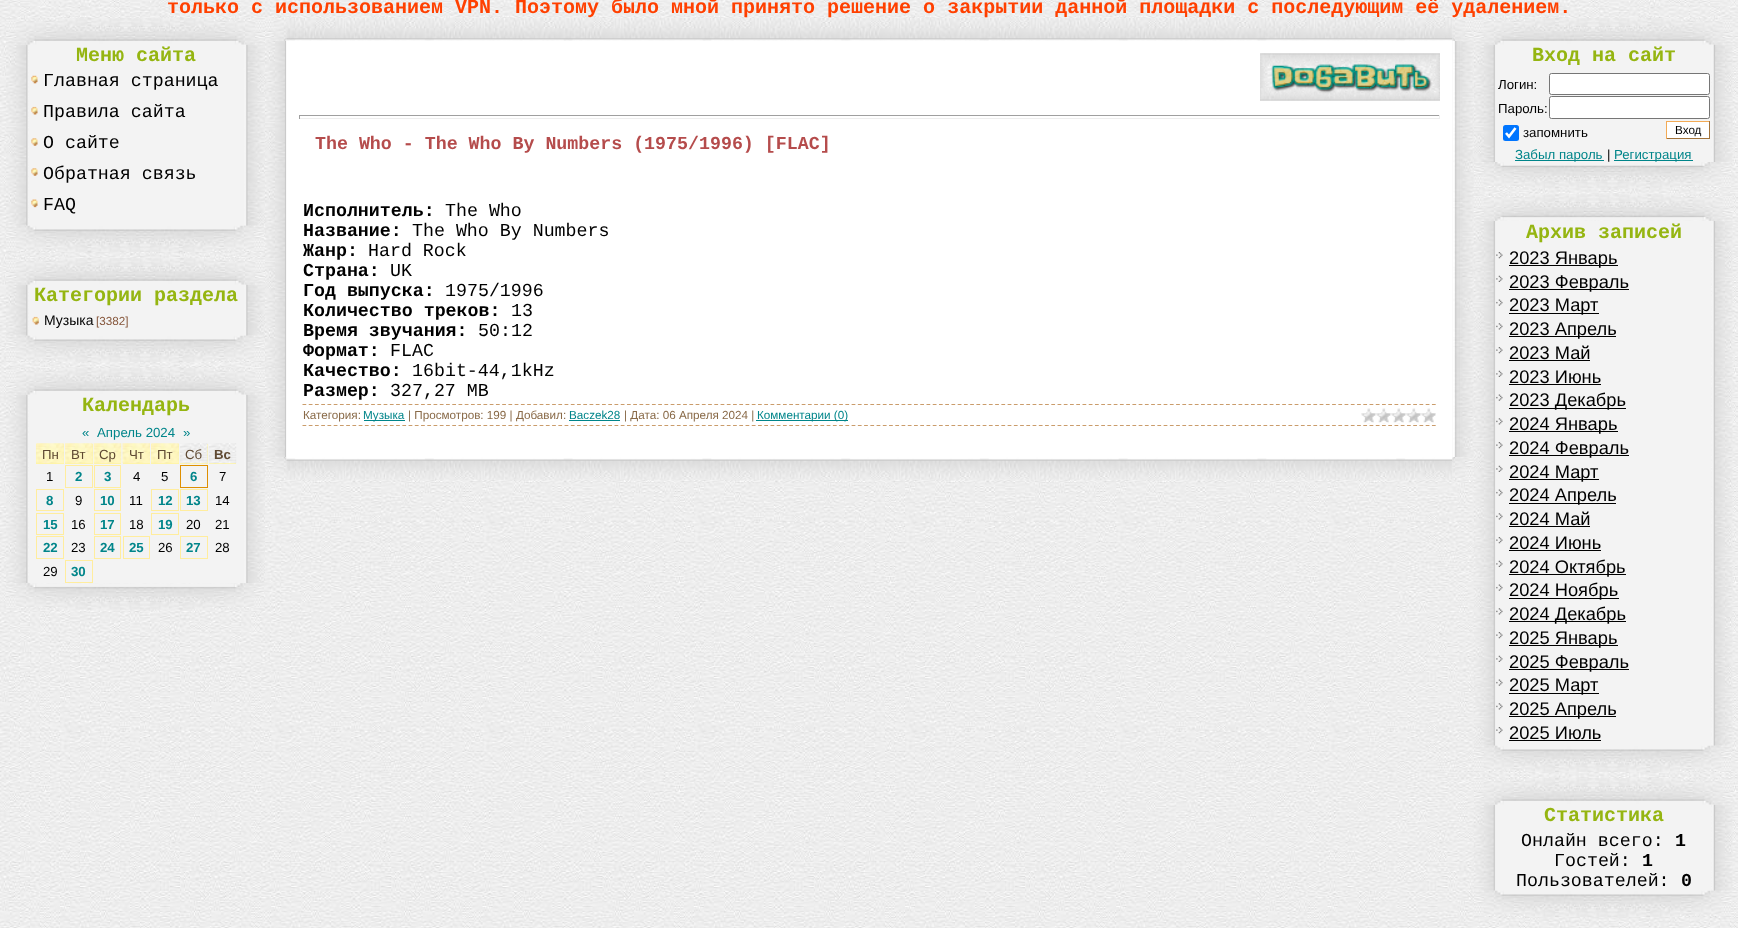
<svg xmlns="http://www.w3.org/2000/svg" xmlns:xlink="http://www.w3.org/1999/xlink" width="1738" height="928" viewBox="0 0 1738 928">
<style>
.cls-1{font:bold 20px Liberation Mono;fill:#ff4000}
.cls-2{font:bold 20px Liberation Mono;fill:#95b511}
.cls-3{font:18.3px Liberation Mono;fill:#000000}
.cls-4{font:14px Liberation Sans;fill:#000000}
.cls-5{font:11.7px Liberation Sans;fill:#85553a}
.cls-6{font:13.25px Liberation Sans;fill:#00858a}
.cls-7{font:13.25px Liberation Sans;fill:#5f4932}
.cls-8{font:bold 13.25px Liberation Sans;fill:#5f4932}
.cls-9{font:13.25px Liberation Sans;fill:#000000}
.cls-10{font:bold 13.25px Liberation Sans;fill:#00858a}
.cls-11{font:bold 18.3px Liberation Mono;fill:#b54c4c}
.cls-12{font:bold 18.3px Liberation Mono;fill:#000000}
.cls-13{font:11.7px Liberation Sans;fill:#896a48}
.cls-14{font:11.7px Liberation Sans;fill:#00858a}
.cls-15{font:11.7px Liberation Sans;fill:#000000}
.cls-16{font:18.3px Liberation Sans;fill:#000000}
</style>
<rect width="100%" height="100%" fill="#ffffff"/>
<image xlink:href="image0.png" x="0" y="0" width="1738" height="928"/>
<image xlink:href="image2.png" x="6" y="44" width="23" height="182"/>
<rect fill="#f3f3f3" x="29" y="44" width="215" height="27"/>
<image xlink:href="image3.png" x="243" y="44" width="22" height="182"/>
<image xlink:href="image1.png" x="6" y="18" width="259" height="27"/>
<rect fill="#f3f3f3" x="29" y="71" width="215" height="155"/>
<image xlink:href="image4.png" x="31" y="75" width="7" height="9"/>
<image xlink:href="image5.png" x="31" y="106" width="7" height="9"/>
<image xlink:href="image6.png" x="31" y="138" width="7" height="8"/>
<image xlink:href="image6.png" x="31" y="168" width="7" height="8"/>
<image xlink:href="image7.png" x="31" y="199" width="7" height="9"/>
<image xlink:href="image8.png" x="6" y="225" width="258" height="27"/>
<image xlink:href="image10.png" x="6" y="284" width="23" height="52"/>
<rect fill="#f3f3f3" x="29" y="284" width="215" height="52"/>
<image xlink:href="image11.png" x="244" y="284" width="21" height="52"/>
<image xlink:href="image9.png" x="6" y="258" width="259" height="27"/>
<image xlink:href="image12.png" x="32" y="316" width="7" height="9"/>
<image xlink:href="image13.png" x="6" y="335" width="258" height="27"/>
<image xlink:href="image15.png" x="6" y="394" width="23" height="190"/>
<rect fill="#f3f3f3" x="29" y="394" width="215" height="27"/>
<image xlink:href="image16.png" x="243" y="394" width="22" height="190"/>
<image xlink:href="image14.png" x="6" y="368" width="259" height="27"/>
<rect fill="#f3f3f3" x="29" y="421" width="215" height="162"/>
<rect fill="#fff5a2" x="36" y="444" width="28" height="20"/>
<image xlink:href="image17.png" x="36" y="443" width="28" height="21"/>
<rect fill="#fff5a2" x="65" y="444" width="28" height="20"/>
<image xlink:href="image18.png" x="65" y="443" width="28" height="21"/>
<rect fill="#fff5a2" x="94" y="463" width="27" height="1"/>
<image xlink:href="image19.png" x="93" y="443" width="29" height="21"/>
<rect fill="#fff5a2" x="123" y="463" width="27" height="1"/>
<image xlink:href="image20.png" x="122" y="443" width="28" height="21"/>
<rect fill="#fff5a2" x="151" y="444" width="28" height="20"/>
<image xlink:href="image17.png" x="151" y="443" width="28" height="21"/>
<rect fill="#fff5a2" x="180" y="444" width="28" height="20"/>
<image xlink:href="image21.png" x="180" y="443" width="28" height="21"/>
<rect fill="#fff5a2" x="209" y="463" width="27" height="1"/>
<image xlink:href="image22.png" x="209" y="443" width="28" height="21"/>
<rect fill="none" stroke="#ffed9e" x="65.5" y="465.5" width="27" height="22"/>
<rect fill="none" stroke="#ffed9e" x="94.5" y="465.5" width="26" height="22"/>
<rect fill="none" stroke="#de8f00" x="180.5" y="465.5" width="27" height="22"/>
<rect fill="none" stroke="#ffed9e" x="36.5" y="489.5" width="27" height="21"/>
<rect fill="none" stroke="#ffed9e" x="94.5" y="489.5" width="26" height="21"/>
<rect fill="none" stroke="#ffed9e" x="151.5" y="489.5" width="27" height="21"/>
<rect fill="none" stroke="#ffed9e" x="180.5" y="489.5" width="27" height="21"/>
<rect fill="none" stroke="#ffed9e" x="36.5" y="513.5" width="27" height="21"/>
<rect fill="none" stroke="#ffed9e" x="94.5" y="513.5" width="26" height="21"/>
<rect fill="none" stroke="#ffed9e" x="151.5" y="513.5" width="27" height="21"/>
<rect fill="none" stroke="#ffed9e" x="36.5" y="536.5" width="27" height="22"/>
<rect fill="none" stroke="#ffed9e" x="94.5" y="536.5" width="26" height="22"/>
<rect fill="none" stroke="#ffed9e" x="123.5" y="536.5" width="26" height="22"/>
<rect fill="none" stroke="#ffed9e" x="180.5" y="536.5" width="27" height="22"/>
<rect fill="none" stroke="#ffed9e" x="65.5" y="560.5" width="27" height="22"/>
<image xlink:href="image23.png" x="6" y="583" width="258" height="27"/>
<image xlink:href="image27.png" x="265" y="40" width="21" height="417"/>
<image xlink:href="image24.png" x="265" y="18" width="21" height="23"/>
<image xlink:href="image25.png" x="286" y="18" width="1167" height="23"/>
<image xlink:href="image30.png" x="1453" y="40" width="21" height="417"/>
<image xlink:href="image26.png" x="1452" y="18" width="22" height="23"/>
<rect fill="#fafafa" x="286" y="41" width="1167" height="417"/>
<rect fill="#ffffff" x="287" y="41" width="1165" height="416"/>
<image xlink:href="image28.png" x="1260" y="53" width="180" height="48"/>
<rect fill="#9f9f9f" x="299" y="115" width="1141" height="1"/>
<rect fill="#eeeeee" x="1439" y="115" width="1" height="4"/>
<rect fill="#eeeeee" x="299" y="118" width="1141" height="1"/>
<rect fill="#9f9f9f" x="299" y="115" width="1" height="4"/>
<path fill="none" stroke="#ca9c6b" stroke-width="1.2" stroke-dasharray="3.75 2.49" d="M302.5 404.5H1436"/>
<path fill="none" stroke="#ca9c6b" stroke-width="1.2" stroke-dasharray="3.75 2.49" d="M302.5 425.5H1436"/>
<rect fill="#00858a" x="364" y="420" width="41" height="1"/>
<rect fill="#00858a" x="569" y="420" width="51" height="1"/>
<rect fill="#00858a" x="756" y="420" width="92" height="1"/>
<image xlink:href="image29.png" x="1361" y="408" width="75" height="16"/>
<image xlink:href="image32.png" x="286" y="457" width="1167" height="23"/>
<image xlink:href="image31.png" x="265" y="457" width="22" height="23"/>
<image xlink:href="image39.png" x="1473" y="220" width="24" height="526"/>
<image xlink:href="image33.png" x="1452" y="457" width="22" height="23"/>
<image xlink:href="image35.png" x="1474" y="44" width="22" height="118"/>
<rect fill="#f3f3f3" x="1496" y="44" width="216" height="27"/>
<image xlink:href="image36.png" x="1711" y="44" width="22" height="118"/>
<image xlink:href="image34.png" x="1473" y="18" width="260" height="27"/>
<rect fill="#f3f3f3" x="1496" y="71" width="215" height="91"/>
<rect fill="#ffffff" stroke="#767676" x="1549.5" y="73.5" width="160" height="21" rx="2"/>
<rect fill="#ffffff" stroke="#767676" x="1549.5" y="96.5" width="160" height="22" rx="2"/>
<rect fill="#0075ff" x="1503" y="125" width="16" height="16" rx="2.5"/>
<path fill="none" stroke="#ffffff" stroke-width="2.6" d="M1506 133L1509 136.5L1515.5 128"/>
<rect fill="#ffffff" x="1667" y="122" width="42" height="16"/>
<rect fill="#f3ab56" x="1666" y="121" width="44" height="1"/>
<rect fill="#a27239" x="1709" y="121" width="1" height="18"/>
<rect fill="#a27239" x="1666" y="138" width="44" height="1"/>
<rect fill="#f3ab56" x="1666" y="121" width="1" height="18"/>
<rect fill="#00858a" x="1515" y="160" width="89" height="1"/>
<rect fill="#00858a" x="1614" y="160" width="79" height="1"/>
<image xlink:href="image37.png" x="1474" y="162" width="258" height="27"/>
<image xlink:href="image40.png" x="1711" y="220" width="22" height="526"/>
<image xlink:href="image38.png" x="1473" y="194" width="260" height="27"/>
<rect fill="#f3f3f3" x="1496" y="221" width="215" height="525"/>
<image xlink:href="image41.png" x="1496" y="252" width="7" height="7"/>
<rect fill="#000000" x="1509" y="265" width="109" height="1"/>
<image xlink:href="image42.png" x="1496" y="275" width="7" height="7"/>
<rect fill="#000000" x="1509" y="289" width="120" height="1"/>
<image xlink:href="image43.png" x="1496" y="299" width="7" height="7"/>
<rect fill="#000000" x="1509" y="313" width="90" height="1"/>
<image xlink:href="image44.png" x="1496" y="323" width="7" height="7"/>
<rect fill="#000000" x="1509" y="336" width="107" height="1"/>
<image xlink:href="image41.png" x="1496" y="347" width="7" height="7"/>
<rect fill="#000000" x="1509" y="360" width="81" height="1"/>
<image xlink:href="image42.png" x="1496" y="370" width="7" height="7"/>
<rect fill="#000000" x="1509" y="384" width="92" height="1"/>
<image xlink:href="image43.png" x="1496" y="394" width="7" height="7"/>
<rect fill="#000000" x="1509" y="408" width="117" height="1"/>
<image xlink:href="image44.png" x="1496" y="418" width="7" height="7"/>
<rect fill="#000000" x="1509" y="431" width="109" height="1"/>
<image xlink:href="image41.png" x="1496" y="442" width="7" height="7"/>
<rect fill="#000000" x="1509" y="455" width="120" height="1"/>
<image xlink:href="image45.png" x="1496" y="465" width="7" height="7"/>
<rect fill="#000000" x="1509" y="479" width="90" height="1"/>
<image xlink:href="image43.png" x="1496" y="489" width="7" height="7"/>
<rect fill="#000000" x="1509" y="503" width="107" height="1"/>
<image xlink:href="image44.png" x="1496" y="513" width="7" height="7"/>
<rect fill="#000000" x="1509" y="526" width="81" height="1"/>
<image xlink:href="image41.png" x="1496" y="537" width="7" height="7"/>
<rect fill="#000000" x="1509" y="550" width="92" height="1"/>
<image xlink:href="image42.png" x="1496" y="560" width="7" height="7"/>
<rect fill="#000000" x="1509" y="574" width="117" height="1"/>
<image xlink:href="image43.png" x="1496" y="584" width="7" height="7"/>
<rect fill="#000000" x="1509" y="598" width="110" height="1"/>
<image xlink:href="image44.png" x="1496" y="608" width="7" height="7"/>
<rect fill="#000000" x="1509" y="621" width="117" height="1"/>
<image xlink:href="image41.png" x="1496" y="632" width="7" height="7"/>
<rect fill="#000000" x="1509" y="645" width="109" height="1"/>
<image xlink:href="image42.png" x="1496" y="655" width="7" height="7"/>
<rect fill="#000000" x="1509" y="669" width="120" height="1"/>
<image xlink:href="image43.png" x="1496" y="679" width="7" height="7"/>
<rect fill="#000000" x="1509" y="693" width="90" height="1"/>
<image xlink:href="image44.png" x="1496" y="703" width="7" height="7"/>
<rect fill="#000000" x="1509" y="716" width="107" height="1"/>
<image xlink:href="image41.png" x="1496" y="727" width="7" height="7"/>
<rect fill="#000000" x="1509" y="740" width="92" height="1"/>
<image xlink:href="image46.png" x="1474" y="745" width="257" height="27"/>
<image xlink:href="image48.png" x="1473" y="804" width="23" height="87"/>
<rect fill="#f3f3f3" x="1496" y="804" width="215" height="87"/>
<image xlink:href="image49.png" x="1711" y="804" width="22" height="87"/>
<image xlink:href="image47.png" x="1474" y="778" width="259" height="27"/>
<image xlink:href="image50.png" x="1474" y="890" width="258" height="27"/>
<text class="cls-1" x="167" y="13">только с использованием VPN. Поэтому было мной принято решение о закрытии данной площадки с последующим её удалением.</text>
<text class="cls-2" x="76" y="61">Меню сайта</text>
<text class="cls-3"><tspan x="43" y="86">Главная страница</tspan><tspan x="43" y="117">Правила сайта</tspan><tspan x="43" y="148">О сайте</tspan><tspan x="43" y="179">Обратная связь</tspan><tspan x="43" y="210">FAQ</tspan></text>
<text class="cls-2" x="34" y="301">Категории раздела</text>
<text class="cls-4" x="44" y="325">Музыка</text>
<text class="cls-5" x="96" y="325">[3382]</text>
<text class="cls-2" x="82" y="411">Календарь</text>
<text class="cls-6" x="82" y="437">«</text>
<text class="cls-6" x="97" y="437">Апрель 2024</text>
<text class="cls-6" x="183" y="437">»</text>
<text class="cls-7" x="42" y="459">Пн</text>
<text class="cls-7" x="71" y="459">Вт</text>
<text class="cls-7" x="99" y="459">Ср</text>
<text class="cls-7" x="129" y="459">Чт</text>
<text class="cls-7" x="157" y="459">Пт</text>
<text class="cls-7" x="185" y="459">Сб</text>
<text class="cls-8" x="214" y="459">Вс</text>
<text class="cls-9" x="46" y="481">1</text>
<text class="cls-10" x="75" y="481">2</text>
<text class="cls-10" x="104" y="481">3</text>
<text class="cls-9" x="133" y="481">4</text>
<text class="cls-9" x="161" y="481">5</text>
<text class="cls-10" x="190" y="481">6</text>
<text class="cls-9" x="219" y="481">7</text>
<text class="cls-10" x="46" y="505">8</text>
<text class="cls-9" x="75" y="505">9</text>
<text class="cls-10" x="100" y="505">10</text>
<text class="cls-9" x="129" y="505">11</text>
<text class="cls-10" x="158" y="505">12</text>
<text class="cls-10" x="186" y="505">13</text>
<text class="cls-9" x="215" y="505">14</text>
<text class="cls-10" x="43" y="529">15</text>
<text class="cls-9" x="71" y="529">16</text>
<text class="cls-10" x="100" y="529">17</text>
<text class="cls-9" x="129" y="529">18</text>
<text class="cls-10" x="158" y="529">19</text>
<text class="cls-9" x="186" y="529">20</text>
<text class="cls-9" x="215" y="529">21</text>
<text class="cls-10" x="43" y="552">22</text>
<text class="cls-9" x="71" y="552">23</text>
<text class="cls-10" x="100" y="552">24</text>
<text class="cls-10" x="129" y="552">25</text>
<text class="cls-9" x="158" y="552">26</text>
<text class="cls-10" x="186" y="552">27</text>
<text class="cls-9" x="215" y="552">28</text>
<text class="cls-9" x="43" y="576">29</text>
<text class="cls-10" x="71" y="576">30</text>
<text class="cls-11" x="315" y="149">The Who - The Who By Numbers (1975/1996) [FLAC]</text>
<text class="cls-12" x="303" y="216">Исполнитель:</text>
<text class="cls-3" x="445" y="216">The Who</text>
<text class="cls-12" x="303" y="236">Название:</text>
<text class="cls-3" x="412" y="236">The Who By Numbers</text>
<text class="cls-12" x="303" y="256">Жанр:</text>
<text class="cls-3" x="368" y="256">Hard Rock</text>
<text class="cls-12" x="303" y="276">Страна:</text>
<text class="cls-3" x="390" y="276">UK</text>
<text class="cls-12" x="303" y="296">Год выпуска:</text>
<text class="cls-3" x="445" y="296">1975/1996</text>
<text class="cls-12" x="303" y="316">Количество треков:</text>
<text class="cls-3" x="511" y="316">13</text>
<text class="cls-12" x="303" y="336">Время звучания:</text>
<text class="cls-3" x="478" y="336">50:12</text>
<text class="cls-12" x="303" y="356">Формат:</text>
<text class="cls-3" x="390" y="356">FLAC</text>
<text class="cls-12" x="303" y="376">Качество:</text>
<text class="cls-3" x="412" y="376">16bit-44,1kHz</text>
<text class="cls-12" x="303" y="396">Размер:</text>
<text class="cls-3" x="390" y="396">327,27 MB</text>
<text class="cls-13" x="303" y="419">Категория:</text>
<text class="cls-14" x="363" y="419">Музыка</text>
<text class="cls-13" x="408" y="419">| Просмотров: 199 | Добавил:</text>
<text class="cls-14" x="569" y="419">Baczek28</text>
<text class="cls-13" x="624" y="419">| Дата: 06 Апреля 2024 |</text>
<text class="cls-14" x="757" y="419">Комментарии (0)</text>
<text class="cls-2" x="1532" y="61">Вход на сайт</text>
<text class="cls-9"><tspan x="1498" y="89">Логин:</tspan><tspan x="1498" y="113">Пароль:</tspan></text>
<text class="cls-9" x="1523" y="137">запомнить</text>
<text class="cls-15" x="1675" y="134">Вход</text>
<text class="cls-6" x="1515" y="159">Забыл пароль</text>
<text class="cls-9" x="1607" y="159">|</text>
<text class="cls-6" x="1614" y="159">Регистрация</text>
<text class="cls-2" x="1526" y="238">Архив записей</text>
<text class="cls-16"><tspan x="1509" y="264">2023 Январь</tspan><tspan x="1509" y="288">2023 Февраль</tspan><tspan x="1509" y="311">2023 Март</tspan><tspan x="1509" y="335">2023 Апрель</tspan><tspan x="1509" y="359">2023 Май</tspan><tspan x="1509" y="383">2023 Июнь</tspan><tspan x="1509" y="406">2023 Декабрь</tspan><tspan x="1509" y="430">2024 Январь</tspan><tspan x="1509" y="454">2024 Февраль</tspan><tspan x="1509" y="478">2024 Март</tspan><tspan x="1509" y="501">2024 Апрель</tspan><tspan x="1509" y="525">2024 Май</tspan><tspan x="1509" y="549">2024 Июнь</tspan><tspan x="1509" y="573">2024 Октябрь</tspan><tspan x="1509" y="596">2024 Ноябрь</tspan><tspan x="1509" y="620">2024 Декабрь</tspan><tspan x="1509" y="644">2025 Январь</tspan><tspan x="1509" y="668">2025 Февраль</tspan><tspan x="1509" y="691">2025 Март</tspan><tspan x="1509" y="715">2025 Апрель</tspan><tspan x="1509" y="739">2025 Июль</tspan></text>
<text class="cls-2" x="1544" y="821">Статистика</text>
<text class="cls-3" x="1521" y="846">Онлайн всего:</text>
<text class="cls-12" x="1675" y="846">1</text>
<text class="cls-3" x="1554" y="866">Гостей:</text>
<text class="cls-12" x="1642" y="866">1</text>
<text class="cls-3" x="1516" y="886">Пользователей:</text>
<text class="cls-12" x="1681" y="886">0</text>
</svg>
